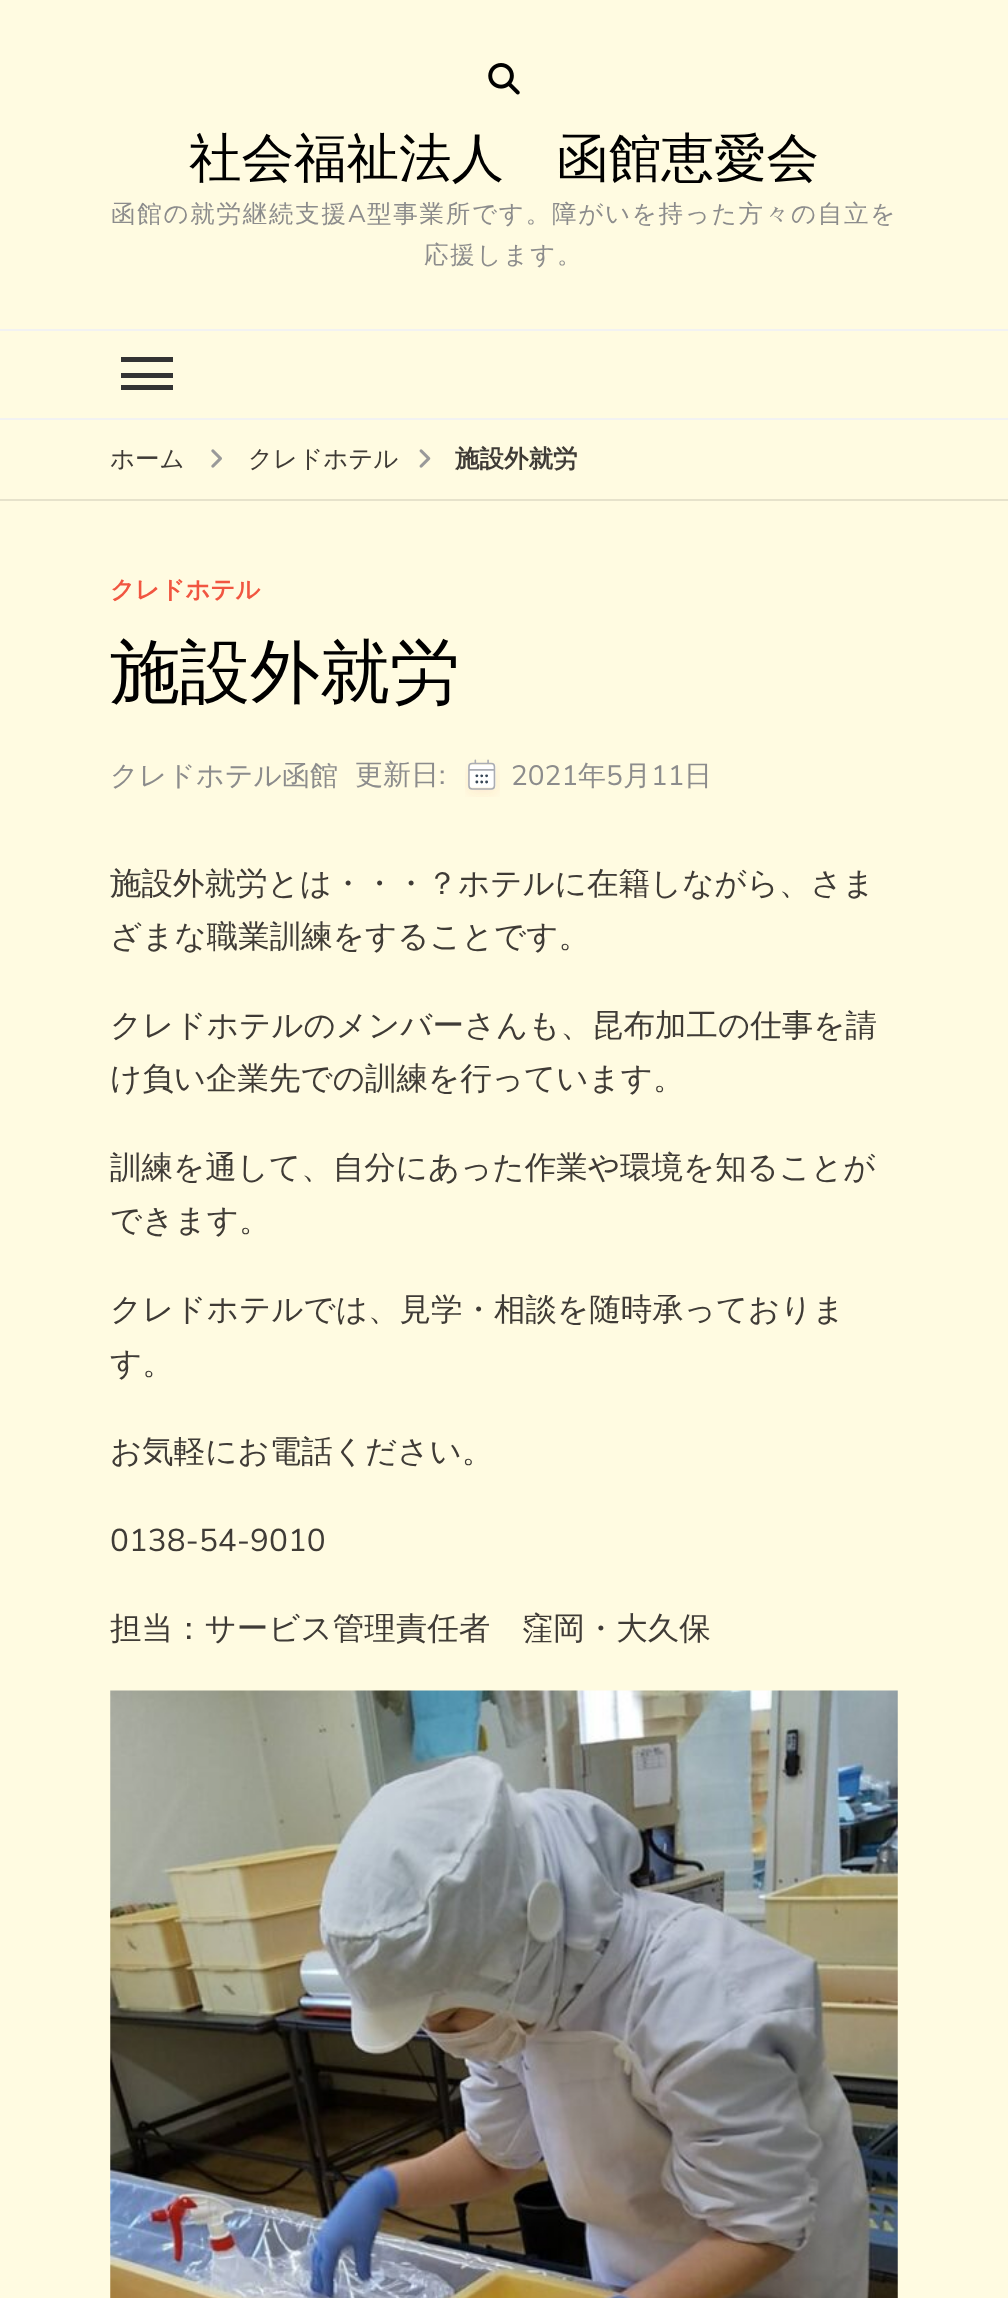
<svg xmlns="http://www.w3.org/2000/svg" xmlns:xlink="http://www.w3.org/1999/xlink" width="1008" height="2298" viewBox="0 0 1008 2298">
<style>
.cls-1{font:500 52.5px WenQuanYi Zen Hei;fill:#000000}
.cls-2{font:500 24.5px WenQuanYi Zen Hei;letter-spacing:1.75px;fill:#8c8c8c}
.cls-3{font:24.5px Nunito Sans;letter-spacing:1.75px;fill:#8c8c8c}
.cls-4{font:500 24.5px WenQuanYi Zen Hei;fill:#3f3b36}
.cls-5{font:bold 24.5px WenQuanYi Zen Hei;fill:#3f3b36}
.cls-6{font:bold 24.5px WenQuanYi Zen Hei;fill:#f15641}
.cls-7{font:500 70px WenQuanYi Zen Hei;fill:#000000}
.cls-8{font:500 28px WenQuanYi Zen Hei;fill:#8c8c8c}
.cls-9{font:28px Nunito Sans;fill:#8c8c8c}
.cls-10{font:500 31.5px WenQuanYi Zen Hei;fill:#3f3b36}
.cls-11{font:31.5px Nunito Sans;fill:#3f3b36}
</style>
<rect width="100%" height="100%" fill="#fffbe1"/>
<rect fill="#f2f2f2" x="0" y="418" width="1008" height="2"/>
<image xlink:href="image0.png" x="488" y="63" width="32" height="32"/>
<rect fill="#f2f2f2" x="0" y="329" width="1008" height="2"/>
<rect fill="#333333" x="121" y="357" width="52" height="5"/>
<rect fill="#333333" x="121" y="373" width="52" height="5"/>
<rect fill="#333333" x="121" y="385" width="52" height="5"/>
<rect fill="#e6e2cb" x="0" y="499" width="1008" height="2"/>
<image xlink:href="image1.png" x="211" y="449" width="11" height="19"/>
<image xlink:href="image2.png" x="419" y="449" width="12" height="19"/>
<image xlink:href="image3.png" x="465" y="759" width="35" height="38"/>
<image xlink:href="image4.png" x="110" y="1690" width="788" height="608"/>
<text class="cls-1" x="189" y="176">社会福祉法人　函館恵愛会</text>
<text class="cls-2" x="111" y="222">函館の就労継続支援</text>
<text class="cls-3" x="348" y="222">A</text>
<text class="cls-2" x="367" y="222">型事業所です。障がいを持った方々の自立を</text>
<text class="cls-2" x="424" y="263">応援します。</text>
<text class="cls-4" x="110" y="467">ホーム</text>
<text class="cls-4" x="248" y="467">クレドホテル</text>
<text class="cls-5" x="455" y="467">施設外就労</text>
<text class="cls-6" x="110" y="598">クレドホテル</text>
<text class="cls-7" x="110" y="696">施設外就労</text>
<text class="cls-8" x="110" y="785">クレドホテル函館</text>
<text class="cls-8" x="355" y="784">更新日</text>
<text class="cls-9" x="439" y="784">:</text>
<text class="cls-9" x="511" y="785">2021</text>
<text class="cls-8" x="578" y="785">年</text>
<text class="cls-9" x="606" y="785">5</text>
<text class="cls-8" x="623" y="785">月</text>
<text class="cls-9" x="651" y="785">11</text>
<text class="cls-8" x="684" y="785">日</text>
<text class="cls-10"><tspan x="110" y="894">施設外就労とは・・・？ホテルに在籍しながら、さま</tspan><tspan x="110" y="947">ざまな職業訓練をすることです。</tspan></text>
<text class="cls-10"><tspan x="110" y="1036">クレドホテルのメンバーさんも、昆布加工の仕事を請</tspan><tspan x="110" y="1089">け負い企業先での訓練を行っています。</tspan></text>
<text class="cls-10"><tspan x="110" y="1178">訓練を通して、自分にあった作業や環境を知ることが</tspan><tspan x="110" y="1231">できます。</tspan></text>
<text class="cls-10"><tspan x="110" y="1320">クレドホテルでは、見学・相談を随時承っておりま</tspan><tspan x="110" y="1374">す。</tspan></text>
<text class="cls-10" x="110" y="1462">お気軽にお電話ください。</text>
<text class="cls-11" x="110" y="1551">0138-54-9010</text>
<text class="cls-10" x="110" y="1639">担当：サービス管理責任者　窪岡・大久保</text>
</svg>
